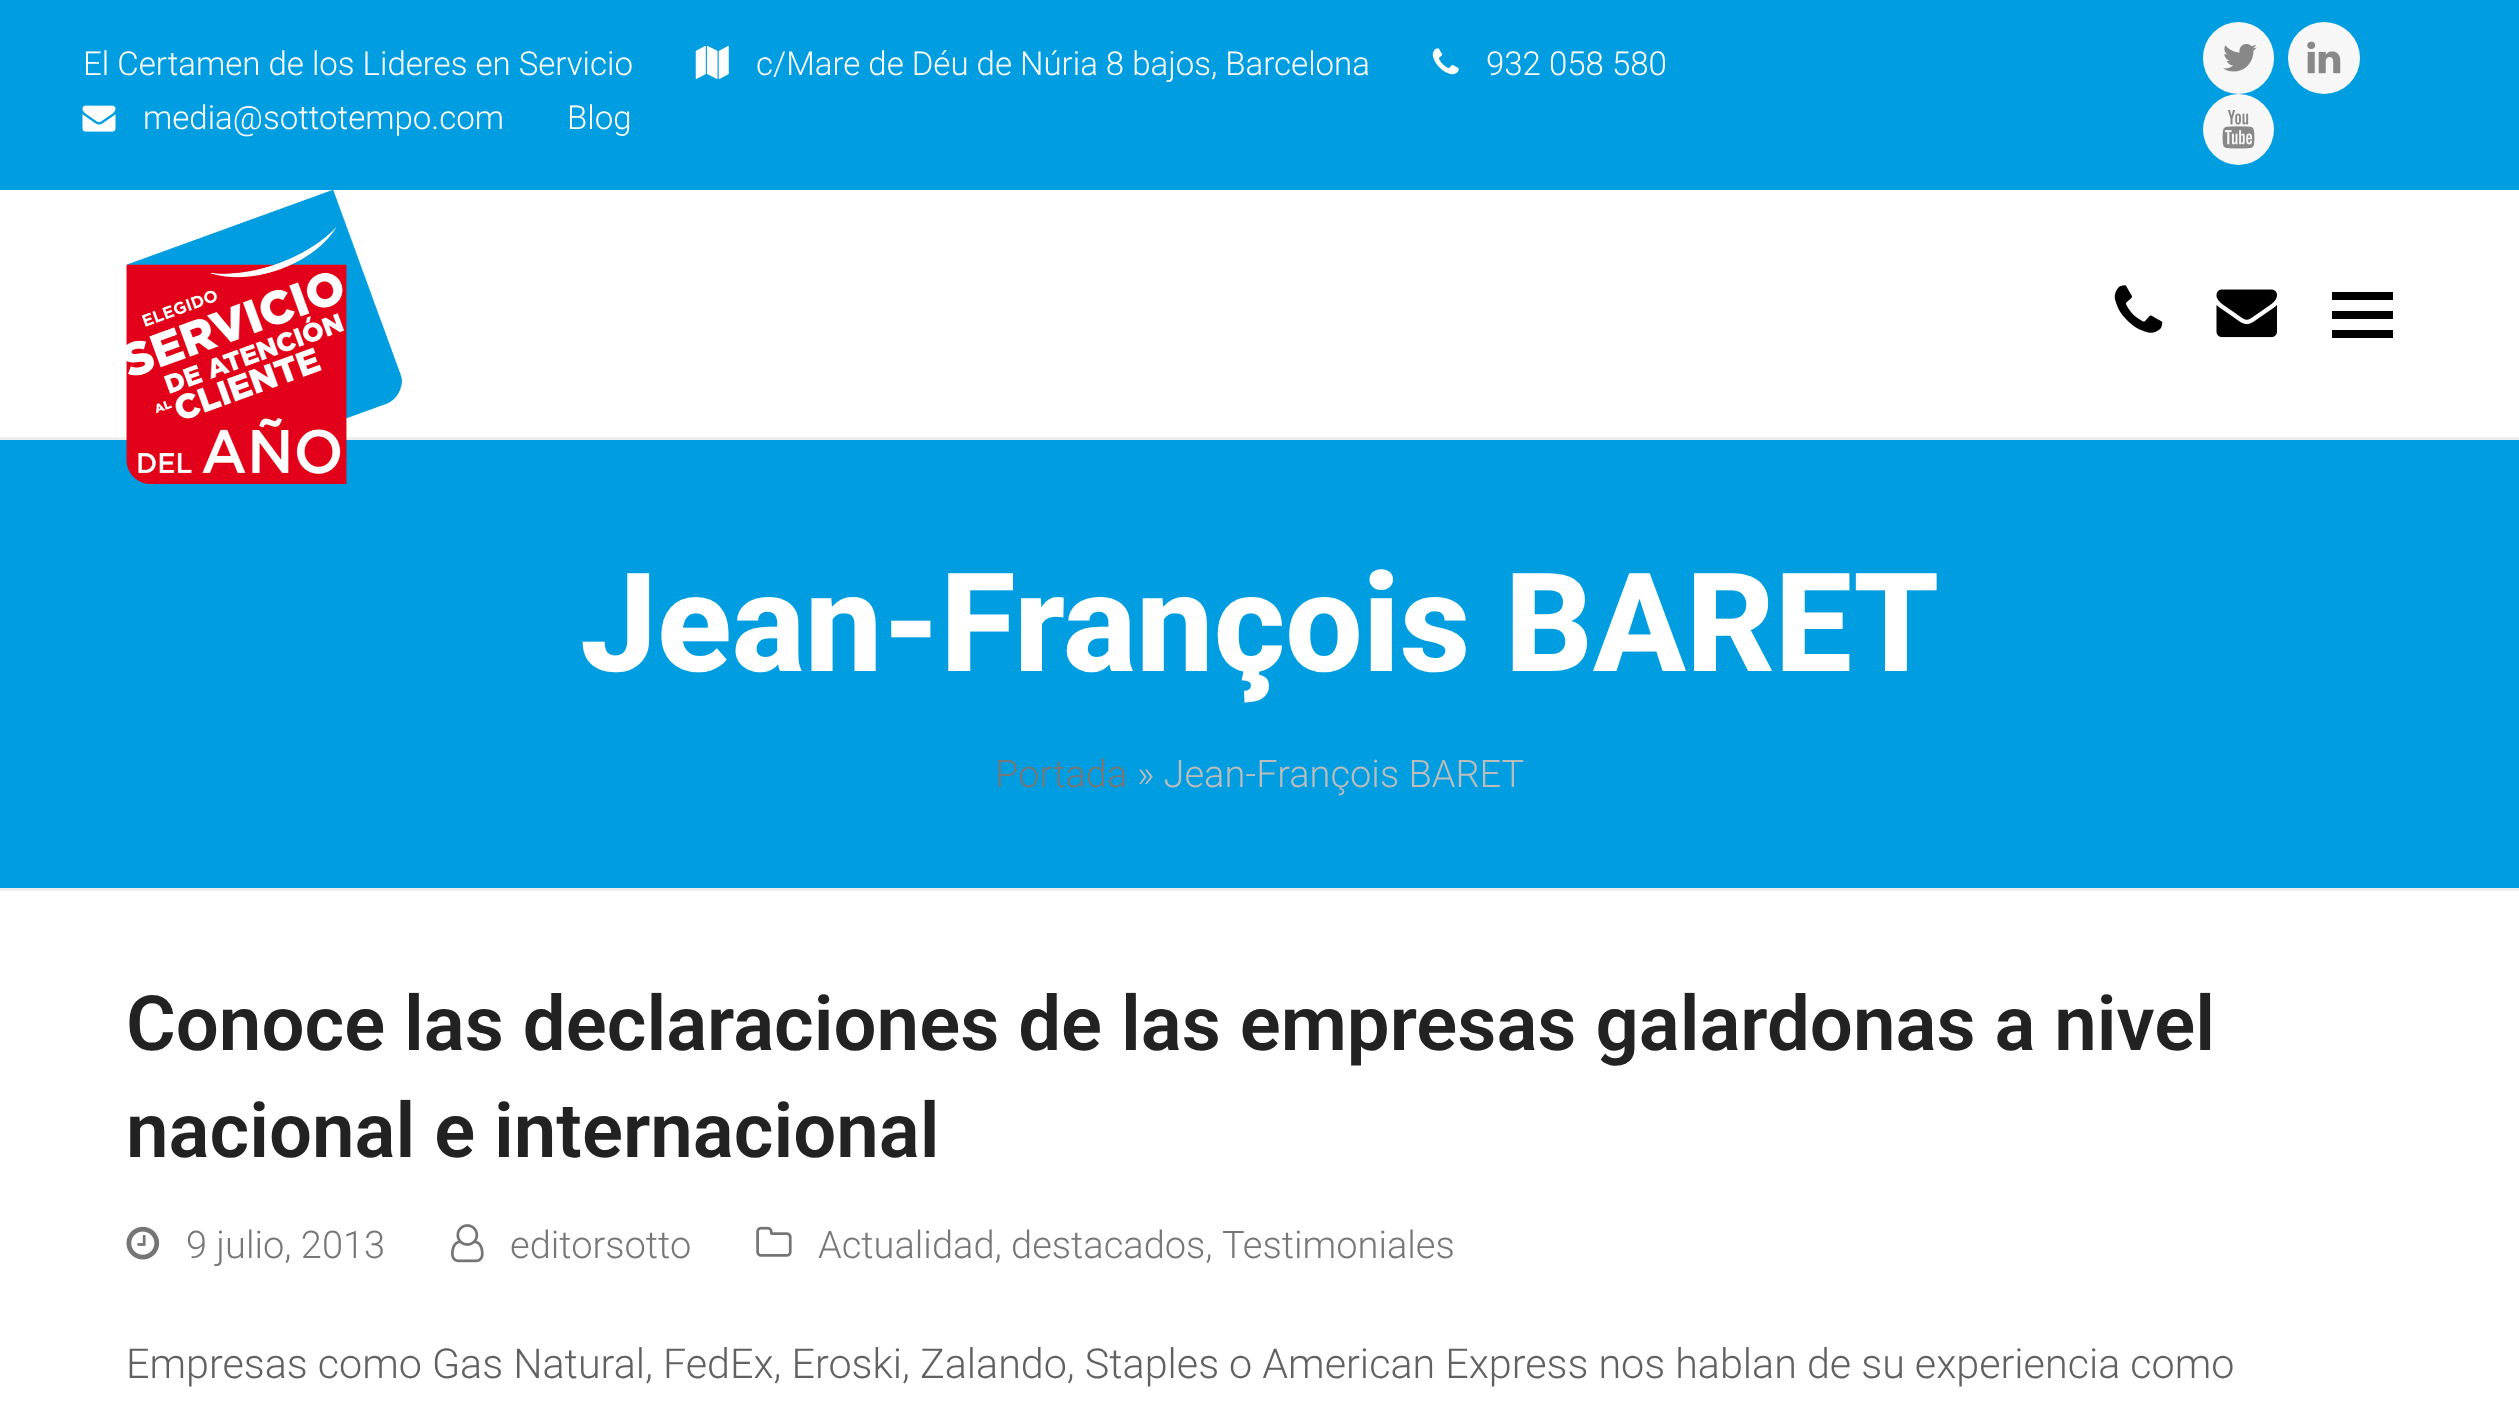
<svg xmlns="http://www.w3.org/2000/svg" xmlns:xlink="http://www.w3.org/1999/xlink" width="2519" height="1408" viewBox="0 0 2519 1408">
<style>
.cls-1{font:300 33px Roboto;fill:#ffffff}
.cls-2{font:800 137.5px Roboto;fill:#ffffff}
.cls-3{font:300 38px Roboto;fill:#777777}
.cls-4{font:300 38px Roboto;fill:#bcbcbc}
.cls-5{font:600 76.15px Roboto;fill:#222222}
.cls-6{font:300 41.25px Roboto;fill:#616161}
</style>
<rect width="100%" height="100%" fill="#ffffff"/>
<rect fill="#009ee0" x="0" y="0" width="2519" height="190"/>
<image xlink:href="image0.png" x="695" y="46" width="34" height="33"/>
<image xlink:href="image1.png" x="1432" y="48" width="27" height="27"/>
<image xlink:href="image2.png" x="82" y="105" width="34" height="27"/>
<rect fill="#f7f7f7" x="2203" y="22" width="71" height="72" rx="35.5"/>
<image xlink:href="image3.png" x="2223" y="44" width="34" height="28"/>
<circle fill="#f7f7f7" cx="2324" cy="58" r="36"/>
<image xlink:href="image4.png" x="2307" y="41" width="34" height="33"/>
<circle fill="#f7f7f7" cx="2238.5" cy="129.5" r="35.5"/>
<image xlink:href="image5.png" x="2222" y="110" width="33" height="39"/>
<rect fill="#009ee0" x="0" y="440" width="2519" height="448"/>
<rect fill="#eeeeee" x="0" y="437" width="2519" height="3"/>
<image xlink:href="image6.png" x="126" y="190" width="276" height="294"/>
<image xlink:href="image7.png" x="2114" y="285" width="49" height="48"/>
<image xlink:href="image8.png" x="2216" y="289" width="61" height="49"/>
<rect fill="#000000" x="2332" y="311" width="61" height="8"/>
<rect fill="#000000" x="2332" y="292" width="61" height="8"/>
<rect fill="#000000" x="2332" y="330" width="61" height="8"/>
<rect fill="#eeeeee" x="0" y="888" width="2519" height="3"/>
<image xlink:href="image9.png" x="126" y="1226" width="34" height="34"/>
<image xlink:href="image10.png" x="451" y="1224" width="33" height="39"/>
<image xlink:href="image11.png" x="756" y="1226" width="36" height="31"/>
<text class="cls-1" x="83" y="75">El Certamen de los Lideres en Servicio</text>
<text class="cls-1" x="756" y="75">c/Mare de Déu de Núria 8 bajos, Barcelona</text>
<text class="cls-1" x="1486" y="75">932 058 580</text>
<text class="cls-1" x="143" y="129">media@sottotempo.com</text>
<text class="cls-1" x="567" y="129">Blog</text>
<text class="cls-2" x="580" y="671">Jean-François BARET</text>
<text class="cls-3" x="995" y="787">Portada</text>
<text class="cls-4" x="1137" y="787">» Jean-François BARET</text>
<text class="cls-5"><tspan x="126" y="1050">Conoce las declaraciones de las empresas galardonas a nivel</tspan><tspan x="126" y="1157">nacional e internacional</tspan></text>
<text class="cls-3" x="186" y="1258">9 julio, 2013</text>
<text class="cls-3" x="510" y="1258">editorsotto</text>
<text class="cls-3" x="818" y="1258">Actualidad, destacados,</text>
<text class="cls-3" x="1222" y="1258">Testimoniales</text>
<text class="cls-6" x="126" y="1378">Empresas como Gas Natural, FedEx, Eroski, Zalando, Staples o American Express nos hablan de su experiencia como</text>
</svg>
